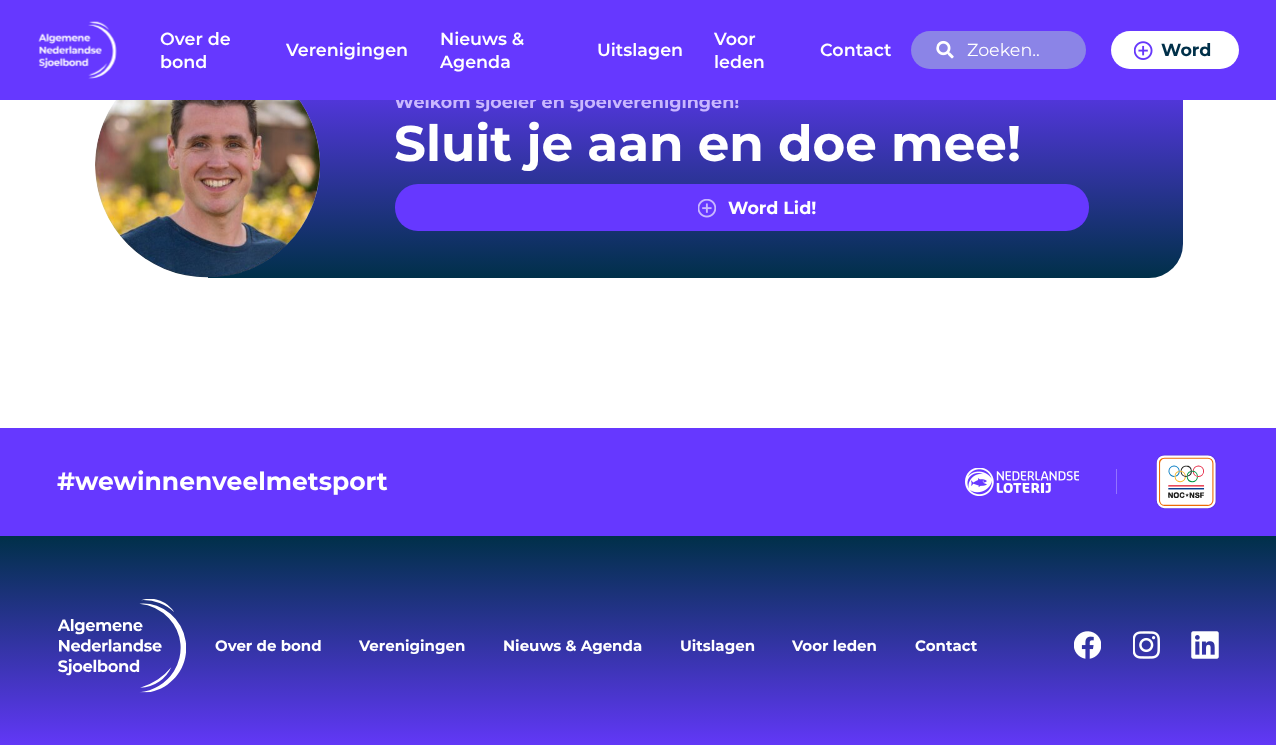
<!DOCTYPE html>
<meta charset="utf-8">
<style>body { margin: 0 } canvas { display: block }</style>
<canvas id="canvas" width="1276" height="745"></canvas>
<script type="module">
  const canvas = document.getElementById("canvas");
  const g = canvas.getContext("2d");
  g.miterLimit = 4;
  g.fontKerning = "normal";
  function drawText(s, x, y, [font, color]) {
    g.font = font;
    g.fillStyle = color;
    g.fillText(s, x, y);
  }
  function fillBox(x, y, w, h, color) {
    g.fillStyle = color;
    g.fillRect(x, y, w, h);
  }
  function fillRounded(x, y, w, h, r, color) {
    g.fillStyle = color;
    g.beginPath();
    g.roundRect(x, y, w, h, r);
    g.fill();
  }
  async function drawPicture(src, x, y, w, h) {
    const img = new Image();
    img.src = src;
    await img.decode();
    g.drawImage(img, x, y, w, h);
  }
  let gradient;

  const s1 = ["bold 17.5px Montserrat", "#C9B7FF"];
  const s2 = ["600 17.5px Montserrat", "#FFFFFF"];
  const s3 = ["17.5px Montserrat", "#FFFFFF"];
  const s4 = ["bold 17.5px Montserrat", "#003049"];
  const s5 = ["bold 50px Montserrat", "#FFFFFF"];
  const s6 = ["bold 17.5px Montserrat", "#FFFFFF"];
  const s7 = ["bold 25px Montserrat", "#FFFFFF"];
  const s8 = ["bold 15px Montserrat", "#FFFFFF"];

  fillBox(0, 0, 1276, 745, "#FFFFFF");
  gradient = g.createLinearGradient(695, 52, 695, 278);
  gradient.addColorStop(0, "#6638FF");
  gradient.addColorStop(1, "#003049");
  g.fillStyle = gradient;
  g.beginPath();
  g.roundRect(208, 53, 975, 225, [0, 34, 34, 0]);
  g.fill();
  drawText("Welkom sjoeler en sjoelverenigingen!", 394, 108, s1);
  fillBox(0, 0, 1276, 100, "#6638FF");
  await drawPicture("pic1.png", 38, 21, 79, 58);
  drawText("Over de", 160, 45, s2);
  drawText("bond", 160, 68, s2);
  drawText("Verenigingen", 286, 56, s2);
  drawText("Nieuws &", 440, 45, s2);
  drawText("Agenda", 440, 68, s2);
  drawText("Uitslagen", 597, 56, s2);
  drawText("Voor", 714, 45, s2);
  drawText("leden", 714, 68, s2);
  drawText("Contact", 820, 56, s2);
  fillRounded(911, 31, 175, 38, 19, "#8B84E7");
  await drawPicture("pic2.png", 936, 40, 18, 19);
  drawText("Zoeken..", 967, 56, s3);
  fillRounded(1111, 31, 128, 38, 19, "#FFFFFF");
  await drawPicture("pic3.png", 1134, 41, 19, 19);
  drawText("Word", 1161, 56, s4);
  await drawPicture("pic4.png", 95, 100, 225, 178);
  drawText("Sluit je aan en doe mee!", 394, 161, s5);
  fillRounded(395, 184, 694, 47, 23, "#6638FF");
  await drawPicture("pic5.png", 698, 199, 18, 19);
  drawText("Word Lid!", 728, 214, s6);
  fillBox(0, 428, 1276, 108, "#6638FF");
  drawText("#wewinnenveelmetsport", 57, 490, s7);
  await drawPicture("pic6.png", 965, 468, 114, 28);
  g.save();
  g.beginPath();
  g.rect(1116, 469, 1, 25);
  g.clip();
  g.beginPath();
  g.moveTo(1117, 469);
  g.lineTo(1117, 494);
  g.strokeStyle = "#FFFFFF";
  g.lineWidth = 0.6;
  g.stroke();
  g.restore();
  await drawPicture("pic7.png", 1156, 454, 61, 55);
  gradient = g.createLinearGradient(638, 536, 638, 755);
  gradient.addColorStop(0, "#003049");
  gradient.addColorStop(1, "#6638FF");
  g.fillStyle = gradient;
  g.fillRect(0, 536, 1276, 209);
  await drawPicture("pic8.png", 58, 599, 128, 94);
  drawText("Over de bond", 215, 651, s8);
  drawText("Verenigingen", 359, 651, s8);
  drawText("Nieuws & Agenda", 503, 651, s8);
  drawText("Uitslagen", 680, 651, s8);
  drawText("Voor leden", 792, 651, s8);
  drawText("Contact", 915, 651, s8);
  await drawPicture("pic9.png", 1074, 631, 27, 28);
  await drawPicture("pic10.png", 1133, 631, 27, 28);
  await drawPicture("pic11.png", 1191, 631, 28, 28);
</script>
